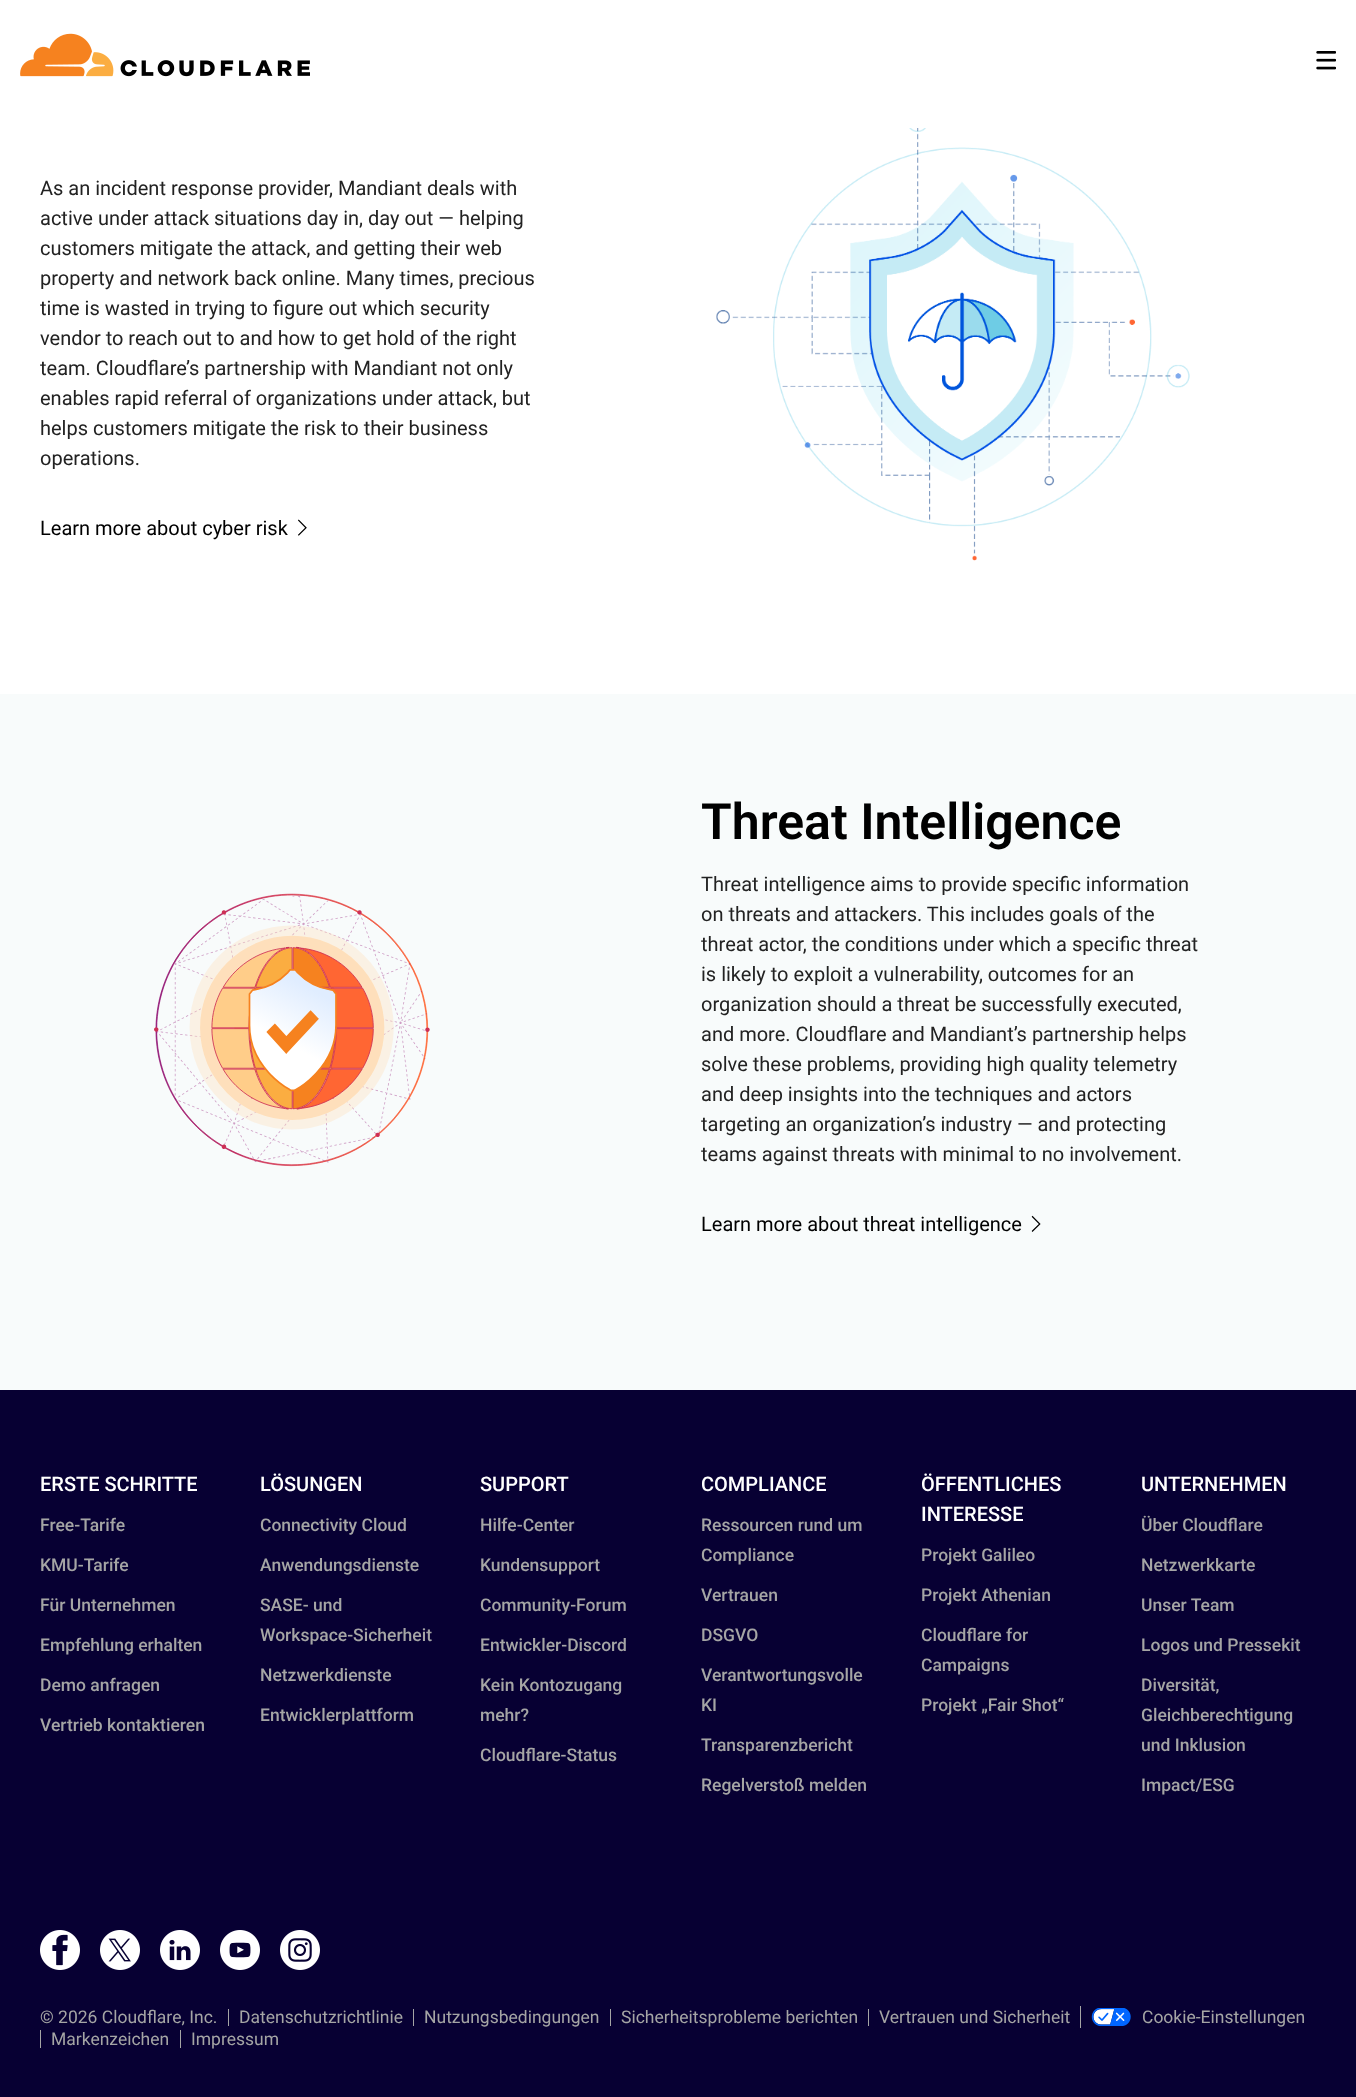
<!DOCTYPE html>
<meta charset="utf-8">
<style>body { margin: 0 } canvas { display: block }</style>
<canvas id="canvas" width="1356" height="2097"></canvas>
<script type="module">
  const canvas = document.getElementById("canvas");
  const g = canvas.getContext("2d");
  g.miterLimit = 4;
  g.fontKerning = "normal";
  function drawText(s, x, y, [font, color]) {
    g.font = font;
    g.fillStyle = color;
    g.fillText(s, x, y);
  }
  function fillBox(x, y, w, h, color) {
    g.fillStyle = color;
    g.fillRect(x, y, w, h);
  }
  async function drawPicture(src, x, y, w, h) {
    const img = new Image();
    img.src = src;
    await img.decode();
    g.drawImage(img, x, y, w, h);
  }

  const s1 = ["20px Roboto", "#222222"];
  const s2 = ["20px Roboto", "#000000"];
  const s3 = ["600 50px Roboto", "#000000"];
  const s4 = ["500 20px Roboto", "#FFFFFF"];
  const s5 = ["500 17.5px Roboto", "#A5A5A5"];
  const s6 = ["17.5px Roboto", "#A5A5A5"];

  fillBox(0, 0, 1356, 2097, "#FFFFFF");
  await drawPicture("pic1.png", 20, 33, 290, 44);
  await drawPicture("pic2.png", 1316, 51, 20, 19);
  drawText("As an incident response provider, Mandiant deals with", 40, 195, s1);
  drawText("active under attack situations day in, day out — helping", 40, 225, s1);
  drawText("customers mitigate the attack, and getting their web", 40, 255, s1);
  drawText("property and network back online. Many times, precious", 40, 285, s1);
  drawText("time is wasted in trying to figure out which security", 40, 315, s1);
  drawText("vendor to reach out to and how to get hold of the right", 40, 345, s1);
  drawText("team. Cloudflare’s partnership with Mandiant not only", 40, 375, s1);
  drawText("enables rapid referral of organizations under attack, but", 40, 405, s1);
  drawText("helps customers mitigate the risk to their business", 40, 435, s1);
  drawText("operations.", 40, 465, s1);
  drawText("Learn more about cyber risk", 40, 535, s2);
  await drawPicture("pic3.png", 298, 519, 9, 17);
  await drawPicture("pic4.png", 716, 128, 474, 433);
  fillBox(0, 694, 1356, 696, "#F8FBFB");
  await drawPicture("pic5.png", 154, 893, 276, 274);
  drawText("Threat Intelligence", 701, 839, s3);
  drawText("Threat intelligence aims to provide specific information", 701, 891, s1);
  drawText("on threats and attackers. This includes goals of the", 701, 921, s1);
  drawText("threat actor, the conditions under which a specific threat", 701, 951, s1);
  drawText("is likely to exploit a vulnerability, outcomes for an", 701, 981, s1);
  drawText("organization should a threat be successfully executed,", 701, 1011, s1);
  drawText("and more. Cloudflare and Mandiant’s partnership helps", 701, 1041, s1);
  drawText("solve these problems, providing high quality telemetry", 701, 1071, s1);
  drawText("and deep insights into the techniques and actors", 701, 1101, s1);
  drawText("targeting an organization’s industry — and protecting", 701, 1131, s1);
  drawText("teams against threats with minimal to no involvement.", 701, 1161, s1);
  drawText("Learn more about threat intelligence", 701, 1231, s2);
  await drawPicture("pic6.png", 1031, 1215, 10, 17);
  fillBox(0, 1390, 1356, 707, "#070033");
  drawText("ERSTE SCHRITTE", 40, 1491, s4);
  drawText("Free-Tarife", 40, 1531, s5);
  drawText("KMU-Tarife", 40, 1571, s5);
  drawText("Für Unternehmen", 40, 1611, s5);
  drawText("Empfehlung erhalten", 40, 1651, s5);
  drawText("Demo anfragen", 40, 1691, s5);
  drawText("Vertrieb kontaktieren", 40, 1731, s5);
  drawText("LÖSUNGEN", 260, 1491, s4);
  drawText("Connectivity Cloud", 260, 1531, s5);
  drawText("Anwendungsdienste", 260, 1571, s5);
  drawText("SASE- und", 260, 1611, s5);
  drawText("Workspace-Sicherheit", 260, 1641, s5);
  drawText("Netzwerkdienste", 260, 1681, s5);
  drawText("Entwicklerplattform", 260, 1721, s5);
  drawText("SUPPORT", 480, 1491, s4);
  drawText("Hilfe-Center", 480, 1531, s5);
  drawText("Kundensupport", 480, 1571, s5);
  drawText("Community-Forum", 480, 1611, s5);
  drawText("Entwickler-Discord", 480, 1651, s5);
  drawText("Kein Kontozugang", 480, 1691, s5);
  drawText("mehr?", 480, 1721, s5);
  drawText("Cloudflare-Status", 480, 1761, s5);
  drawText("COMPLIANCE", 701, 1491, s4);
  drawText("Ressourcen rund um", 701, 1531, s5);
  drawText("Compliance", 701, 1561, s5);
  drawText("Vertrauen", 701, 1601, s5);
  drawText("DSGVO", 701, 1641, s5);
  drawText("Verantwortungsvolle", 701, 1681, s5);
  drawText("KI", 701, 1711, s5);
  drawText("Transparenzbericht", 701, 1751, s5);
  drawText("Regelverstoß melden", 701, 1791, s5);
  drawText("ÖFFENTLICHES", 921, 1491, s4);
  drawText("INTERESSE", 921, 1521, s4);
  drawText("Projekt Galileo", 921, 1561, s5);
  drawText("Projekt Athenian", 921, 1601, s5);
  drawText("Cloudflare for", 921, 1641, s5);
  drawText("Campaigns", 921, 1671, s5);
  drawText("Projekt „Fair Shot“", 921, 1711, s5);
  drawText("UNTERNEHMEN", 1141, 1491, s4);
  drawText("Über Cloudflare", 1141, 1531, s5);
  drawText("Netzwerkkarte", 1141, 1571, s5);
  drawText("Unser Team", 1141, 1611, s5);
  drawText("Logos und Pressekit", 1141, 1651, s5);
  drawText("Diversität,", 1141, 1691, s5);
  drawText("Gleichberechtigung", 1141, 1721, s5);
  drawText("und Inklusion", 1141, 1751, s5);
  drawText("Impact/ESG", 1141, 1791, s5);
  await drawPicture("pic7.png", 40, 1930, 40, 40);
  await drawPicture("pic8.png", 100, 1930, 40, 40);
  await drawPicture("pic9.png", 160, 1930, 40, 40);
  await drawPicture("pic10.png", 220, 1930, 40, 40);
  await drawPicture("pic11.png", 280, 1930, 40, 40);
  drawText("© 2026 Cloudflare, Inc.", 40, 2023, s6);
  fillBox(228, 2009, 1, 17, "#A5A5A5");
  drawText("Datenschutzrichtlinie", 239, 2023, s6);
  fillBox(413, 2009, 1, 17, "#A5A5A5");
  drawText("Nutzungsbedingungen", 424, 2023, s6);
  fillBox(610, 2009, 1, 17, "#A5A5A5");
  drawText("Sicherheitsprobleme berichten", 621, 2023, s6);
  fillBox(868, 2009, 1, 17, "#A5A5A5");
  drawText("Vertrauen und Sicherheit", 879, 2023, s6);
  fillBox(1080, 2006, 1, 22, "#A5A5A5");
  await drawPicture("pic12.png", 1091, 2008, 40, 18);
  drawText("Cookie-Einstellungen", 1142, 2023, s6);
  fillBox(40, 2030, 1, 18, "#A5A5A5");
  drawText("Markenzeichen", 51, 2045, s6);
  fillBox(180, 2030, 1, 18, "#A5A5A5");
  drawText("Impressum", 191, 2045, s6);
</script>
